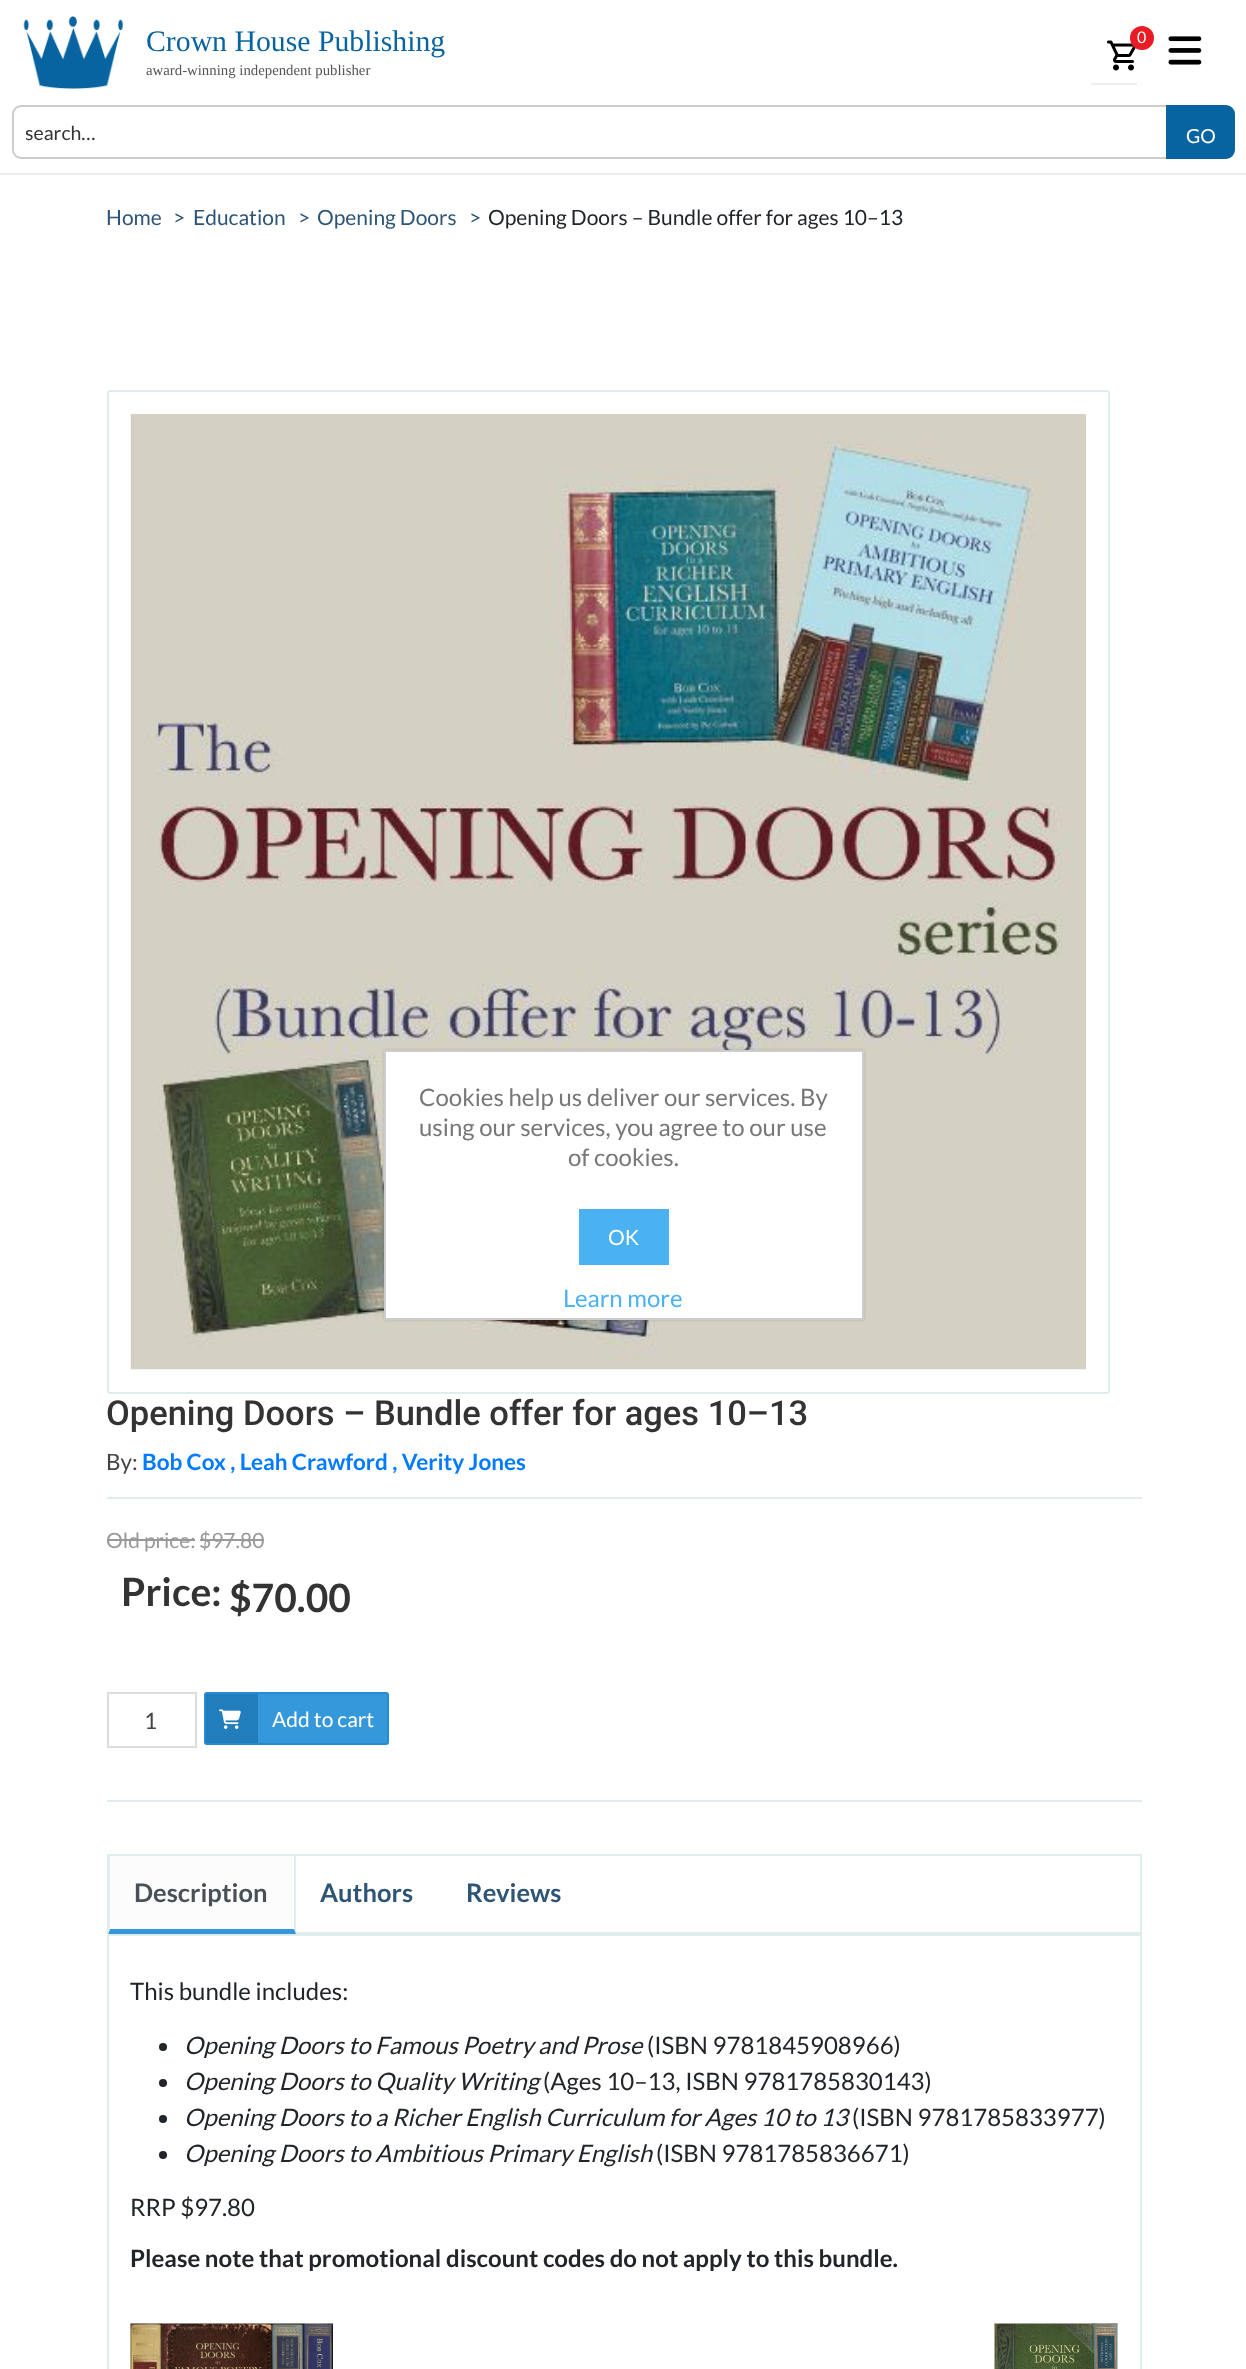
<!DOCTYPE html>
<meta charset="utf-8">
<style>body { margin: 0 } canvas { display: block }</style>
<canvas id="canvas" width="1246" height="2369"></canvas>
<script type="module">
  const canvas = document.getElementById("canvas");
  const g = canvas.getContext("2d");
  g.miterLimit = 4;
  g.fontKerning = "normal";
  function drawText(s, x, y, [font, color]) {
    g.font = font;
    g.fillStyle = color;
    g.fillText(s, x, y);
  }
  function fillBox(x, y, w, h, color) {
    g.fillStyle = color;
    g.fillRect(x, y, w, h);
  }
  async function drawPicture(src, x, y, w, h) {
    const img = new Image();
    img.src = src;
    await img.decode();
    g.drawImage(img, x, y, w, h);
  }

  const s1 = ["29.75px Liberation Serif", "#0864A1"];
  const s2 = ["14.8px Liberation Serif", "#555555"];
  const s3 = ["16px Lato", "#FFFFFF"];
  const s4 = ["19.5px Lato", "#333333"];
  const s5 = ["19.5px Lato", "#FFFFFF"];
  const s6 = ["21px Lato", "#2E5476"];
  const s7 = ["21px Lato", "#212529"];
  const s8 = ["500 34.5px Roboto", "#333333"];
  const s9 = ["22.5px Lato", "#444444"];
  const s10 = ["bold 22.5px Lato", "#007BFF"];
  const s11 = ["21px Lato", "#999999"];
  const s12 = ["bold 39px Lato", "#333333"];
  const s13 = ["21px Lato", "#FFFFFF"];
  const s14 = ["bold 25.5px Lato", "#495057"];
  const s15 = ["bold 25.5px Lato", "#2E5476"];
  const s16 = ["24px Lato", "#212529"];
  const s17 = ["italic 24px Lato", "#212529"];
  const s18 = ["bold 24px Lato", "#212529"];
  const s19 = ["24px Lato", "#777777"];
  const s20 = ["24px Lato", "#4AB2F1"];

  fillBox(0, 0, 1246, 2369, "#FFFFFF");
  fillBox(0, 173, 1246, 2, "#EEEEEE");
  await drawPicture("pic1.png", 23, 16, 101, 74);
  drawText("Crown House Publishing", 146, 51, s1);
  drawText("award-winning independent publisher", 146, 75, s2);
  fillBox(1091, 83, 46, 2, "#EEEEEE");
  await drawPicture("pic2.png", 1107, 40, 29, 31);
  g.fillStyle = "#E91B23";
  g.beginPath();
  g.arc(1142, 38, 12, 0, Math.PI * 2);
  g.fill();
  drawText("0", 1137, 43, s3);
  g.beginPath();
  g.roundRect(13, 106, 1156, 52, [8, 0, 0, 8]);
  g.strokeStyle = "#CCCCCC";
  g.lineWidth = 2;
  g.stroke();
  g.save();
  g.beginPath();
  g.rect(26, 120, 1131, 24);
  g.clip();
  drawText("search…", 25, 140, s4);
  g.restore();
  g.fillStyle = "#0864A1";
  g.beginPath();
  g.roundRect(1167, 106, 67, 52, [0, 8, 8, 0]);
  g.fill();
  g.strokeStyle = "#0864A1";
  g.stroke();
  drawText("GO", 1186, 143, s5);
  await drawPicture("pic3.png", 1168, 36, 34, 29);
  drawText("Home", 106, 225, s6);
  drawText(">", 173, 225, s6);
  drawText("Education", 193, 225, s6);
  drawText(">", 298, 225, s6);
  drawText("Opening Doors", 317, 225, s6);
  drawText(">", 469, 225, s6);
  drawText("Opening Doors – Bundle offer for ages 10–13", 488, 225, s7);
  g.beginPath();
  g.roundRect(108, 391, 1001, 1002, 2);
  g.strokeStyle = "#E0EDED";
  g.stroke();
  await drawPicture("pic4.png", 130, 414, 956, 956);
  drawText("Opening Doors – Bundle offer for ages 10–13", 106, 1425, s8);
  drawText("By:", 106, 1470, s9);
  drawText("Bob Cox , Leah Crawford , Verity Jones", 142, 1470, s10);
  fillBox(107, 1497, 1035, 2, "#E0EDED");
  g.save();
  g.beginPath();
  g.rect(107, 1521, 1035, 120);
  g.clip();
  drawText("Old price:", 106, 1548, s11);
  g.restore();
  fillBox(107, 1539, 88, 2, "#999999");
  drawText("$97.80", 199, 1548, s11);
  fillBox(200, 1539, 64, 2, "#999999");
  drawText("Price:", 121, 1606, s12);
  drawText("$70.00", 229, 1612, s12);
  g.strokeStyle = "#DDDDDD";
  g.strokeRect(108, 1693, 88, 54);
  drawText("1", 144, 1729, s9);
  g.fillStyle = "#3498DB";
  g.beginPath();
  g.roundRect(205, 1693, 183, 51, 2);
  g.fill();
  g.strokeStyle = "#258CD1";
  g.stroke();
  fillBox(206, 1694, 52, 49, "#217DBB");
  await drawPicture("pic5.png", 219, 1709, 22, 20);
  drawText("Add to cart", 272, 1727, s13);
  fillBox(107, 1800, 1035, 2, "#E0EDED");
  g.strokeStyle = "#E0EDED";
  g.strokeRect(108, 1855, 1033, 78);
  fillBox(108, 1856, 188, 78, "#FCFCFC");
  g.fillStyle = "#E0EDED";
  g.beginPath();
  g.moveTo(296, 1856);
  g.lineTo(296, 1934);
  g.lineTo(294, 1929);
  g.lineTo(294, 1856);
  g.closePath();
  g.fill();
  g.fillStyle = "#3498DB";
  g.beginPath();
  g.moveTo(296, 1934);
  g.lineTo(108, 1934);
  g.lineTo(110, 1929);
  g.lineTo(294, 1929);
  g.closePath();
  g.fill();
  g.fillStyle = "#E0EDED";
  g.beginPath();
  g.moveTo(108, 1934);
  g.lineTo(108, 1856);
  g.lineTo(110, 1856);
  g.lineTo(110, 1929);
  g.closePath();
  g.fill();
  drawText("Description", 134, 1902, s14);
  drawText("Authors", 320, 1902, s15);
  drawText("Reviews", 466, 1902, s15);
  g.strokeRect(108, 1935, 1033, 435);
  drawText("This bundle includes:", 130, 2000, s16);
  g.beginPath();
  g.arc(163, 2047, 4, 0, Math.PI * 2);
  g.fill();
  drawText("Opening Doors to Famous Poetry and Prose", 184, 2054, s17);
  drawText("(ISBN 9781845908966)", 647, 2054, s16);
  g.beginPath();
  g.arc(163, 2083, 4, 0, Math.PI * 2);
  g.fill();
  drawText("Opening Doors to Quality Writing", 184, 2090, s17);
  drawText("(Ages 10–13, ISBN 9781785830143)", 543, 2090, s16);
  g.beginPath();
  g.arc(163, 2119, 4, 0, Math.PI * 2);
  g.fill();
  drawText("Opening Doors to a Richer English Curriculum for Ages 10 to 13", 184, 2126, s17);
  drawText("(ISBN 9781785833977)", 852, 2126, s16);
  g.beginPath();
  g.arc(163, 2155, 4, 0, Math.PI * 2);
  g.fill();
  drawText("Opening Doors to Ambitious Primary English", 184, 2162, s17);
  drawText("(ISBN 9781785836671)", 656, 2162, s16);
  drawText("RRP $97.80", 130, 2216, s16);
  drawText("Please note that promotional discount codes do not apply to this bundle.", 130, 2267, s18);
  await drawPicture("pic6.png", 130, 2323, 203, 46);
  await drawPicture("pic7.png", 994, 2323, 124, 46);
  g.fillStyle = "rgba(0, 0, 0, 0.15)";
  g.filter = "blur(1.5px)";
  g.beginPath();
  g.rect(384, 1050, 480, 270);
  g.fill();
  g.filter = "none";
  g.fillStyle = "#FFFFFF";
  g.beginPath();
  g.rect(385, 1051, 478, 268);
  g.fill();
  g.strokeStyle = "#CCCCCC";
  g.stroke();
  drawText("Cookies help us deliver our services. By", 419, 1106, s19);
  drawText("using our services, you agree to our use", 419, 1136, s19);
  drawText("of cookies.", 568, 1166, s19);
  fillBox(579, 1209, 90, 56, "#4AB2F1");
  drawText("OK", 608, 1245, s13);
  drawText("Learn more", 563, 1307, s20);
</script>
